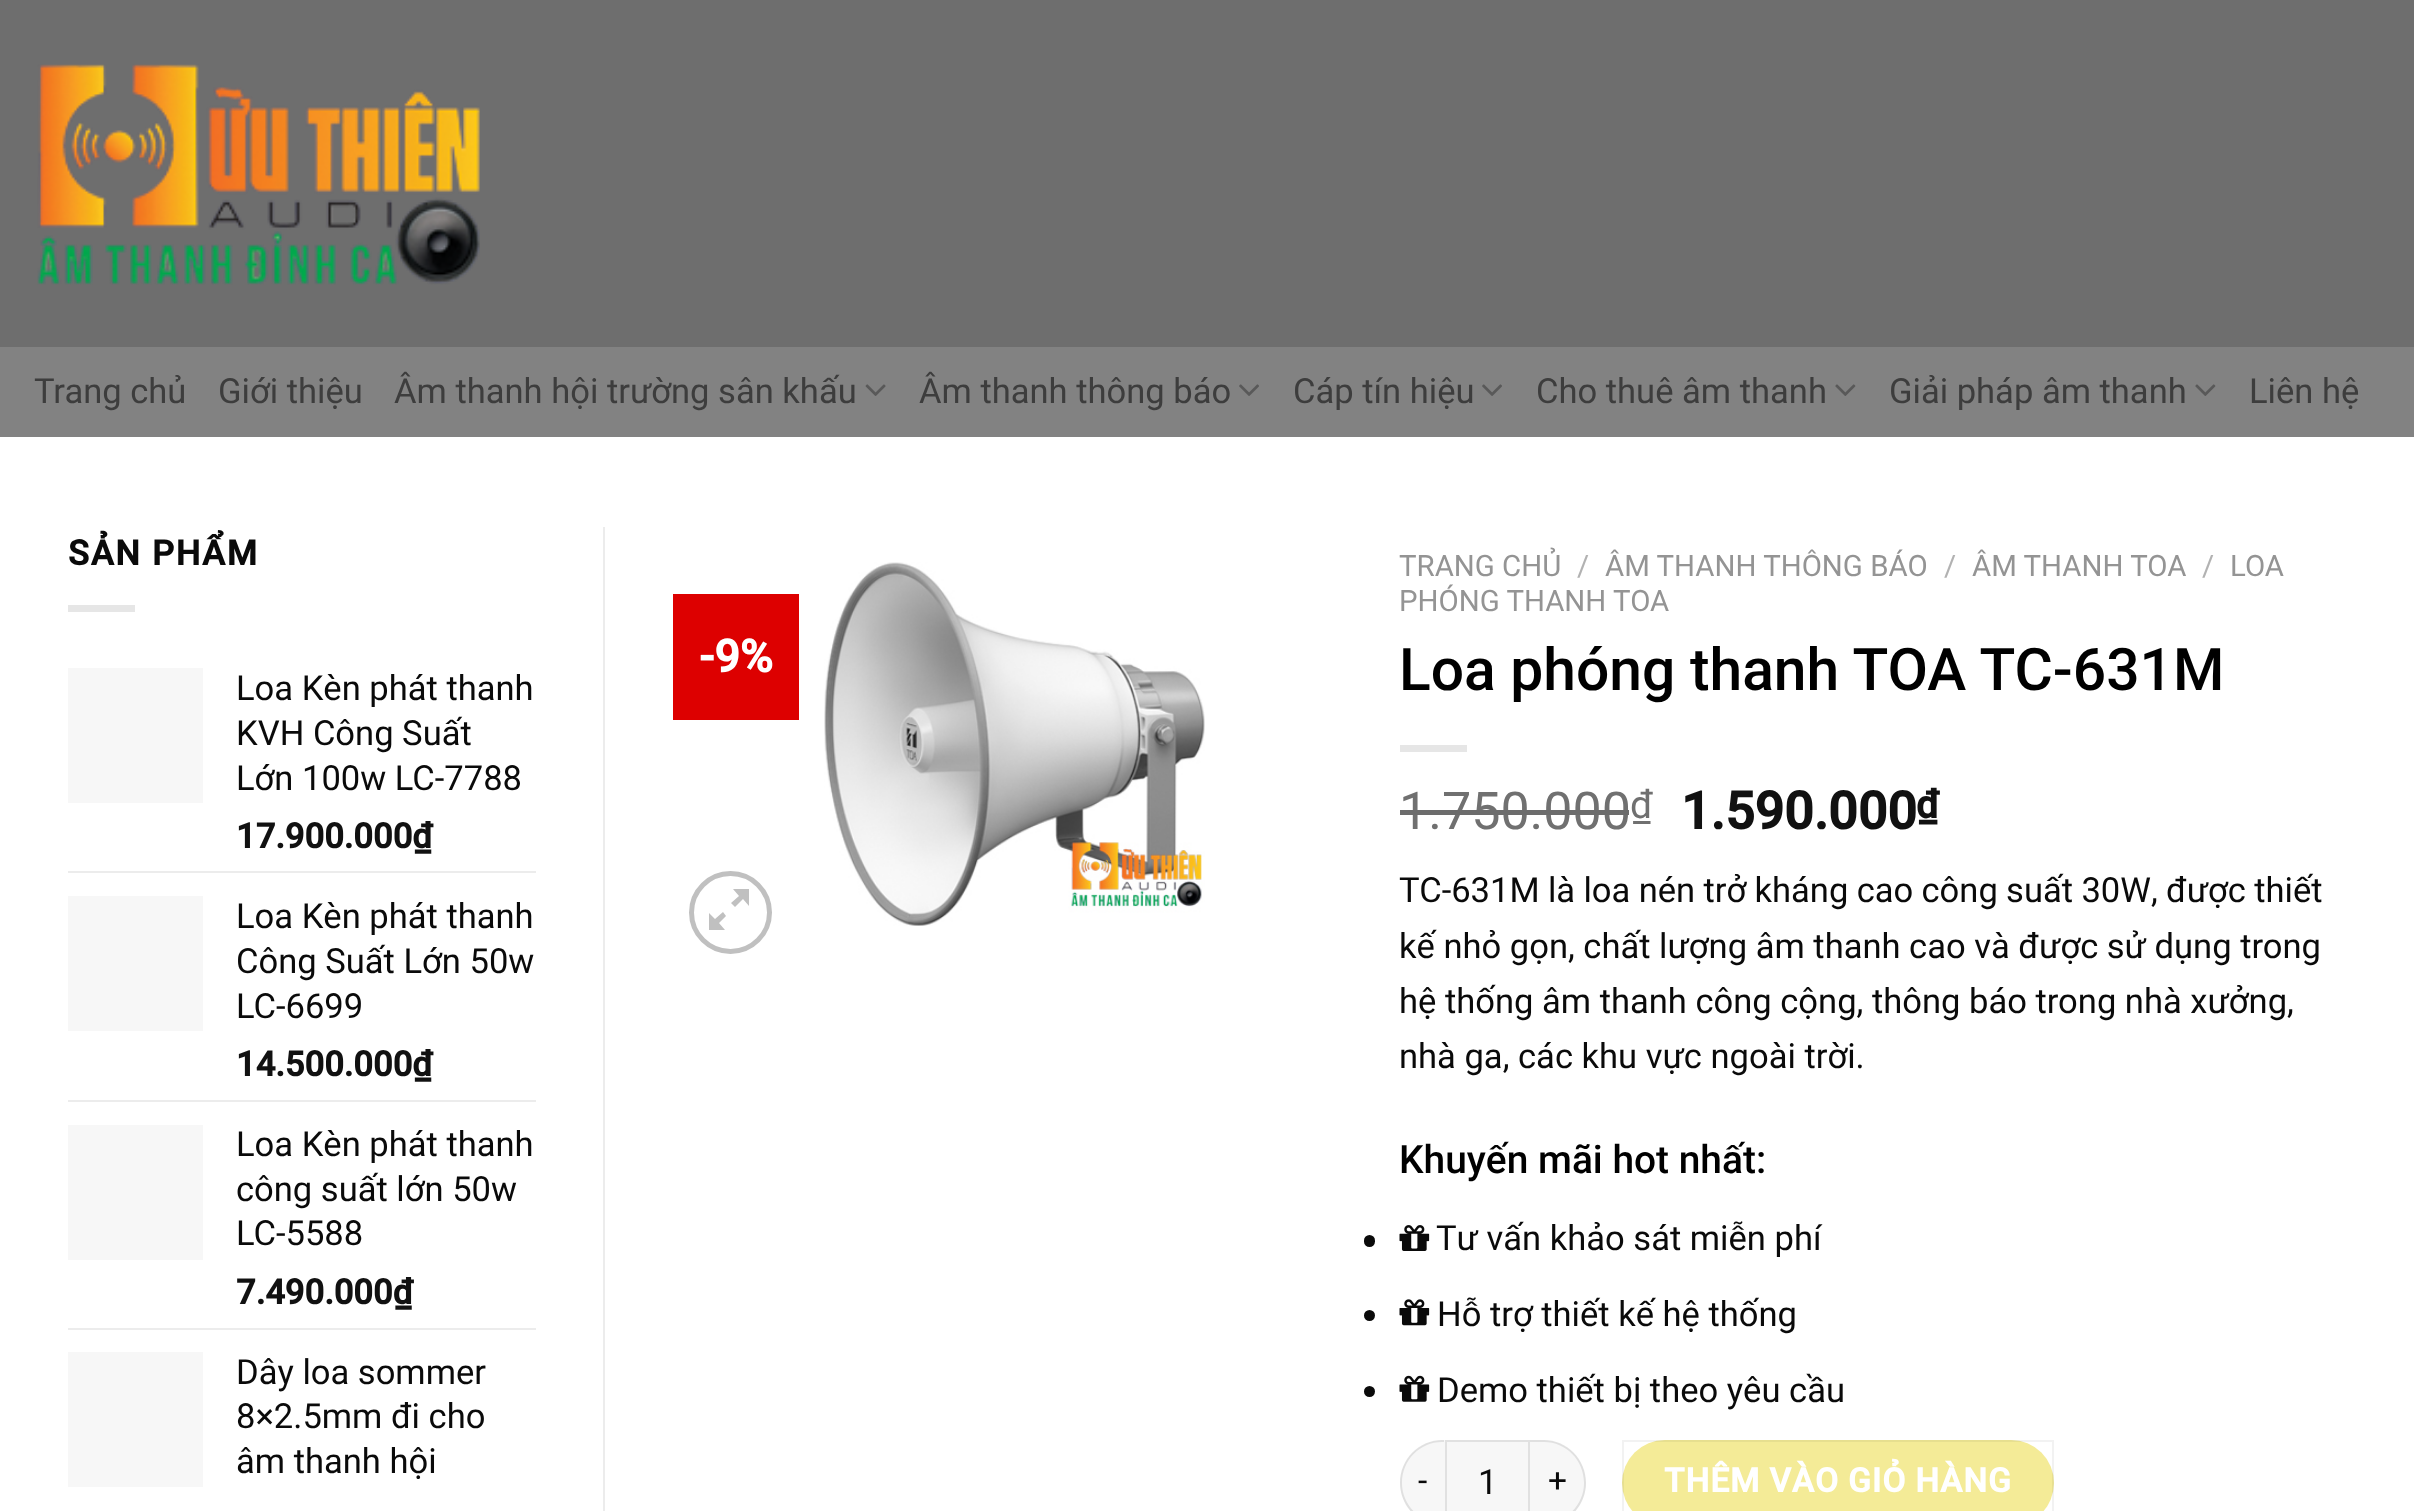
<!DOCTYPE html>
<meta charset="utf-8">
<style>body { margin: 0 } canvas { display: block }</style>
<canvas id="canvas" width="2414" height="1511"></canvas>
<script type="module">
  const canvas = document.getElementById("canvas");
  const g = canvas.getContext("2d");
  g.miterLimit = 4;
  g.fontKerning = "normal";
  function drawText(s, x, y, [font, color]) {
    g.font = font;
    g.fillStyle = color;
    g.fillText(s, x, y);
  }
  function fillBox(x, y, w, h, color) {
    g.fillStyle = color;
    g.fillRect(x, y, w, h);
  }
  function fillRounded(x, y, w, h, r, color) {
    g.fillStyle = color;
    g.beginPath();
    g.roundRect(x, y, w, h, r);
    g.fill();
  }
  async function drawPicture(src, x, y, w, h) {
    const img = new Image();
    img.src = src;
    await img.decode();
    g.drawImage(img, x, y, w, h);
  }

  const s1 = ["34.55px Roboto", "#3D3D3D"];
  const s2 = ["bold 34.55px Roboto", "#0A0A0A"];
  const s3 = ["34.55px Roboto", "#0A0A0A"];
  const s4 = ["bold 34.55px Roboto", "#111111"];
  const s5 = ["bold 45px Roboto", "#FFFFFF"];
  const s6 = ["29.4px Roboto", "#949494"];
  const s7 = ["29.4px Roboto", "#B2B2B2"];
  const s8 = ["500 58.75px Roboto", "#000000"];
  const s9 = ["52px Roboto", "#707070"];
  const s10 = ["38.9px Roboto", "#707070"];
  const s11 = ["bold 52px Roboto", "#111111"];
  const s12 = ["bold 38.9px Roboto", "#111111"];
  const s13 = ["500 38.9px Roboto", "#000000"];
  const s14 = ["33.5px Roboto", "#0A0A0A"];
  const s15 = ["bold 33.5px Roboto", "#FFFFFF"];

  fillBox(0, 0, 2414, 1511, "#FFFFFF");
  fillBox(0, 0, 2414, 347, "#6E6E6E");
  await drawPicture("pic1.png", 37, 64, 443, 221);
  fillBox(0, 347, 2414, 90, "#828282");
  drawText("Trang chủ", 34, 403, s1);
  drawText("Giới thiệu", 218, 403, s1);
  drawText("Âm thanh hội trường sân khấu", 394, 403, s1);
  await drawPicture("pic2.png", 865, 384, 21, 12);
  drawText("Âm thanh thông báo", 919, 403, s1);
  await drawPicture("pic3.png", 1239, 384, 20, 12);
  drawText("Cáp tín hiệu", 1293, 403, s1);
  await drawPicture("pic3.png", 1482, 384, 20, 12);
  drawText("Cho thuê âm thanh", 1536, 403, s1);
  await drawPicture("pic4.png", 1835, 384, 21, 12);
  drawText("Giải pháp âm thanh", 1889, 403, s1);
  await drawPicture("pic4.png", 2195, 384, 21, 12);
  drawText("Liên hệ", 2249, 403, s1);
  g.letterSpacing = "1.75px";
  drawText("SẢN PHẨM", 68, 565, s2);
  fillBox(68, 605, 67, 7, "#E6E6E6");
  fillBox(68, 668, 135, 135, "#F7F7F7");
  g.letterSpacing = "0px";
  drawText("Loa Kèn phát thanh", 236, 700, s3);
  drawText("KVH Công Suất", 236, 745, s3);
  drawText("Lớn 100w LC-7788", 236, 790, s3);
  drawText("17.900.000₫", 236, 848, s4);
  fillBox(68, 871, 468, 2, "#ECECEC");
  fillBox(68, 896, 135, 135, "#F7F7F7");
  drawText("Loa Kèn phát thanh", 236, 928, s3);
  drawText("Công Suất Lớn 50w", 236, 973, s3);
  drawText("LC-6699", 236, 1018, s3);
  drawText("14.500.000₫", 236, 1076, s4);
  fillBox(68, 1100, 468, 2, "#ECECEC");
  fillBox(68, 1125, 135, 135, "#F7F7F7");
  drawText("Loa Kèn phát thanh", 236, 1156, s3);
  drawText("công suất lớn 50w", 236, 1201, s3);
  drawText("LC-5588", 236, 1245, s3);
  drawText("7.490.000₫", 236, 1304, s4);
  fillBox(68, 1328, 468, 2, "#ECECEC");
  fillBox(68, 1352, 135, 135, "#F7F7F7");
  drawText("Dây loa sommer", 236, 1384, s3);
  drawText("8×2.5mm đi cho", 236, 1428, s3);
  drawText("âm thanh hội", 236, 1473, s3);
  fillBox(603, 527, 2, 984, "#ECECEC");
  fillBox(673, 594, 126, 126, "#DD0000");
  drawText("-9%", 699, 672, s5);
  await drawPicture("pic5.png", 824, 562, 381, 364);
  g.beginPath();
  g.arc(730.5, 912.5, 39, 0, Math.PI * 2);
  g.strokeStyle = "#C0C0C0";
  g.lineWidth = 5;
  g.stroke();
  g.fillStyle = "#C0C0C0";
  g.beginPath();
  g.moveTo(749, 889);
  g.lineTo(749, 906);
  g.lineTo(743, 899);
  g.lineTo(735, 907);
  g.lineTo(731, 903);
  g.lineTo(739, 896);
  g.lineTo(733, 889);
  g.closePath();
  g.moveTo(726, 916);
  g.lineTo(719, 923);
  g.lineTo(725, 930);
  g.lineTo(709, 930);
  g.lineTo(709, 913);
  g.lineTo(715, 919);
  g.lineTo(723, 912);
  g.closePath();
  g.fill();
  drawText("TRANG CHỦ", 1399, 576, s6);
  drawText("/", 1577, 576, s7);
  drawText("ÂM THANH THÔNG BÁO", 1605, 576, s6);
  drawText("/", 1944, 576, s7);
  drawText("ÂM THANH TOA", 1972, 576, s6);
  drawText("/", 2202, 576, s7);
  drawText("LOA", 2230, 576, s6);
  drawText("PHÓNG THANH TOA", 1399, 611, s6);
  drawText("Loa phóng thanh TOA TC-631M", 1399, 690, s8);
  fillBox(1400, 745, 67, 7, "#E6E6E6");
  drawText("1.750.000", 1399, 829, s9);
  fillBox(1400, 810, 229, 5, "#6C6C6C");
  drawText("₫", 1630, 818, s10);
  drawText("1.590.000", 1681, 829, s11);
  drawText("₫", 1916, 818, s12);
  g.wordSpacing = "-0.25px";
  drawText("TC-631M là loa nén trở kháng cao công suất 30W, được thiết", 1399, 902, s3);
  g.wordSpacing = "0px";
  drawText("kế nhỏ gọn, chất lượng âm thanh cao và được sử dụng trong", 1399, 958, s3);
  drawText("hệ thống âm thanh công cộng, thông báo trong nhà xưởng,", 1399, 1013, s3);
  drawText("nhà ga, các khu vực ngoài trời.", 1399, 1068, s3);
  drawText("Khuyến mãi hot nhất:", 1399, 1173, s13);
  fillRounded(1364, 1235, 11, 12, 5.5, "#0A0A0A");
  await drawPicture("pic6.png", 1399, 1225, 31, 26);
  drawText("Tư vấn khảo sát miễn phí", 1436, 1250, s3);
  g.beginPath();
  g.arc(1369.5, 1315.5, 5.5, 0, Math.PI * 2);
  g.fill();
  await drawPicture("pic7.png", 1399, 1299, 31, 27);
  drawText("Hỗ trợ thiết kế hệ thống", 1437, 1326, s3);
  g.beginPath();
  g.arc(1369.5, 1391.5, 5.5, 0, Math.PI * 2);
  g.fill();
  await drawPicture("pic8.png", 1399, 1375, 31, 27);
  drawText("Demo thiết bị theo yêu cầu", 1437, 1402, s3);
  g.fillStyle = "#F7F7F7";
  g.beginPath();
  g.moveTo(1443, 1440);
  g.lineTo(1445, 1440);
  g.lineTo(1445, 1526);
  g.lineTo(1443, 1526);
  g.bezierCurveTo(1419.5, 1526, 1400, 1506.5, 1400, 1483);
  g.bezierCurveTo(1400, 1459.5, 1419.5, 1440, 1443, 1440);
  g.closePath();
  g.fill();
  g.fillStyle = "rgba(0, 0, 0, 0.09)";
  g.beginPath();
  g.moveTo(1442, 1440);
  g.lineTo(1444, 1440);
  g.lineTo(1444, 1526);
  g.lineTo(1442, 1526);
  g.bezierCurveTo(1419, 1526, 1400, 1506, 1400, 1483);
  g.bezierCurveTo(1400, 1459, 1419, 1440, 1442, 1440);
  g.closePath();
  g.moveTo(1442, 1442);
  g.lineTo(1444, 1442);
  g.lineTo(1444, 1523);
  g.lineTo(1442, 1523);
  g.bezierCurveTo(1420, 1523, 1402, 1505, 1402, 1483);
  g.bezierCurveTo(1402, 1460, 1420, 1442, 1442, 1442);
  g.closePath();
  g.fill("evenodd");
  g.letterSpacing = "1px";
  drawText("-", 1418, 1492, s14);
  g.fillStyle = "#F7F7F7";
  g.beginPath();
  g.rect(1446, 1441, 83, 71);
  g.fill();
  g.strokeStyle = "#E1E1E1";
  g.lineWidth = 2;
  g.stroke();
  g.letterSpacing = "0px";
  drawText("1", 1478, 1494, s3);
  g.fillStyle = "#F7F7F7";
  g.beginPath();
  g.moveTo(1530, 1440);
  g.lineTo(1543, 1440);
  g.bezierCurveTo(1566.5, 1440, 1586, 1459.5, 1586, 1483);
  g.bezierCurveTo(1586, 1506.5, 1566.5, 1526, 1543, 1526);
  g.lineTo(1530, 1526);
  g.closePath();
  g.fill();
  g.fillStyle = "rgba(0, 0, 0, 0.09)";
  g.beginPath();
  g.moveTo(1530, 1440);
  g.lineTo(1544, 1440);
  g.bezierCurveTo(1567, 1440, 1586, 1459, 1586, 1483);
  g.bezierCurveTo(1586, 1506, 1567, 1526, 1544, 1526);
  g.lineTo(1530, 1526);
  g.closePath();
  g.moveTo(1530, 1442);
  g.lineTo(1544, 1442);
  g.bezierCurveTo(1566, 1442, 1584, 1460, 1584, 1483);
  g.bezierCurveTo(1584, 1505, 1566, 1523, 1544, 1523);
  g.lineTo(1530, 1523);
  g.closePath();
  g.fill("evenodd");
  g.letterSpacing = "1px";
  drawText("+", 1548, 1492, s14);
  fillRounded(1622, 1440, 432, 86, 43, "#F4EB97");
  g.strokeStyle = "rgba(0, 0, 0, 0.05)";
  g.strokeRect(1623, 1441, 430, 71);
  g.wordSpacing = "-0.5px";
  drawText("THÊM VÀO GIỎ HÀNG", 1664, 1492, s15);
</script>
